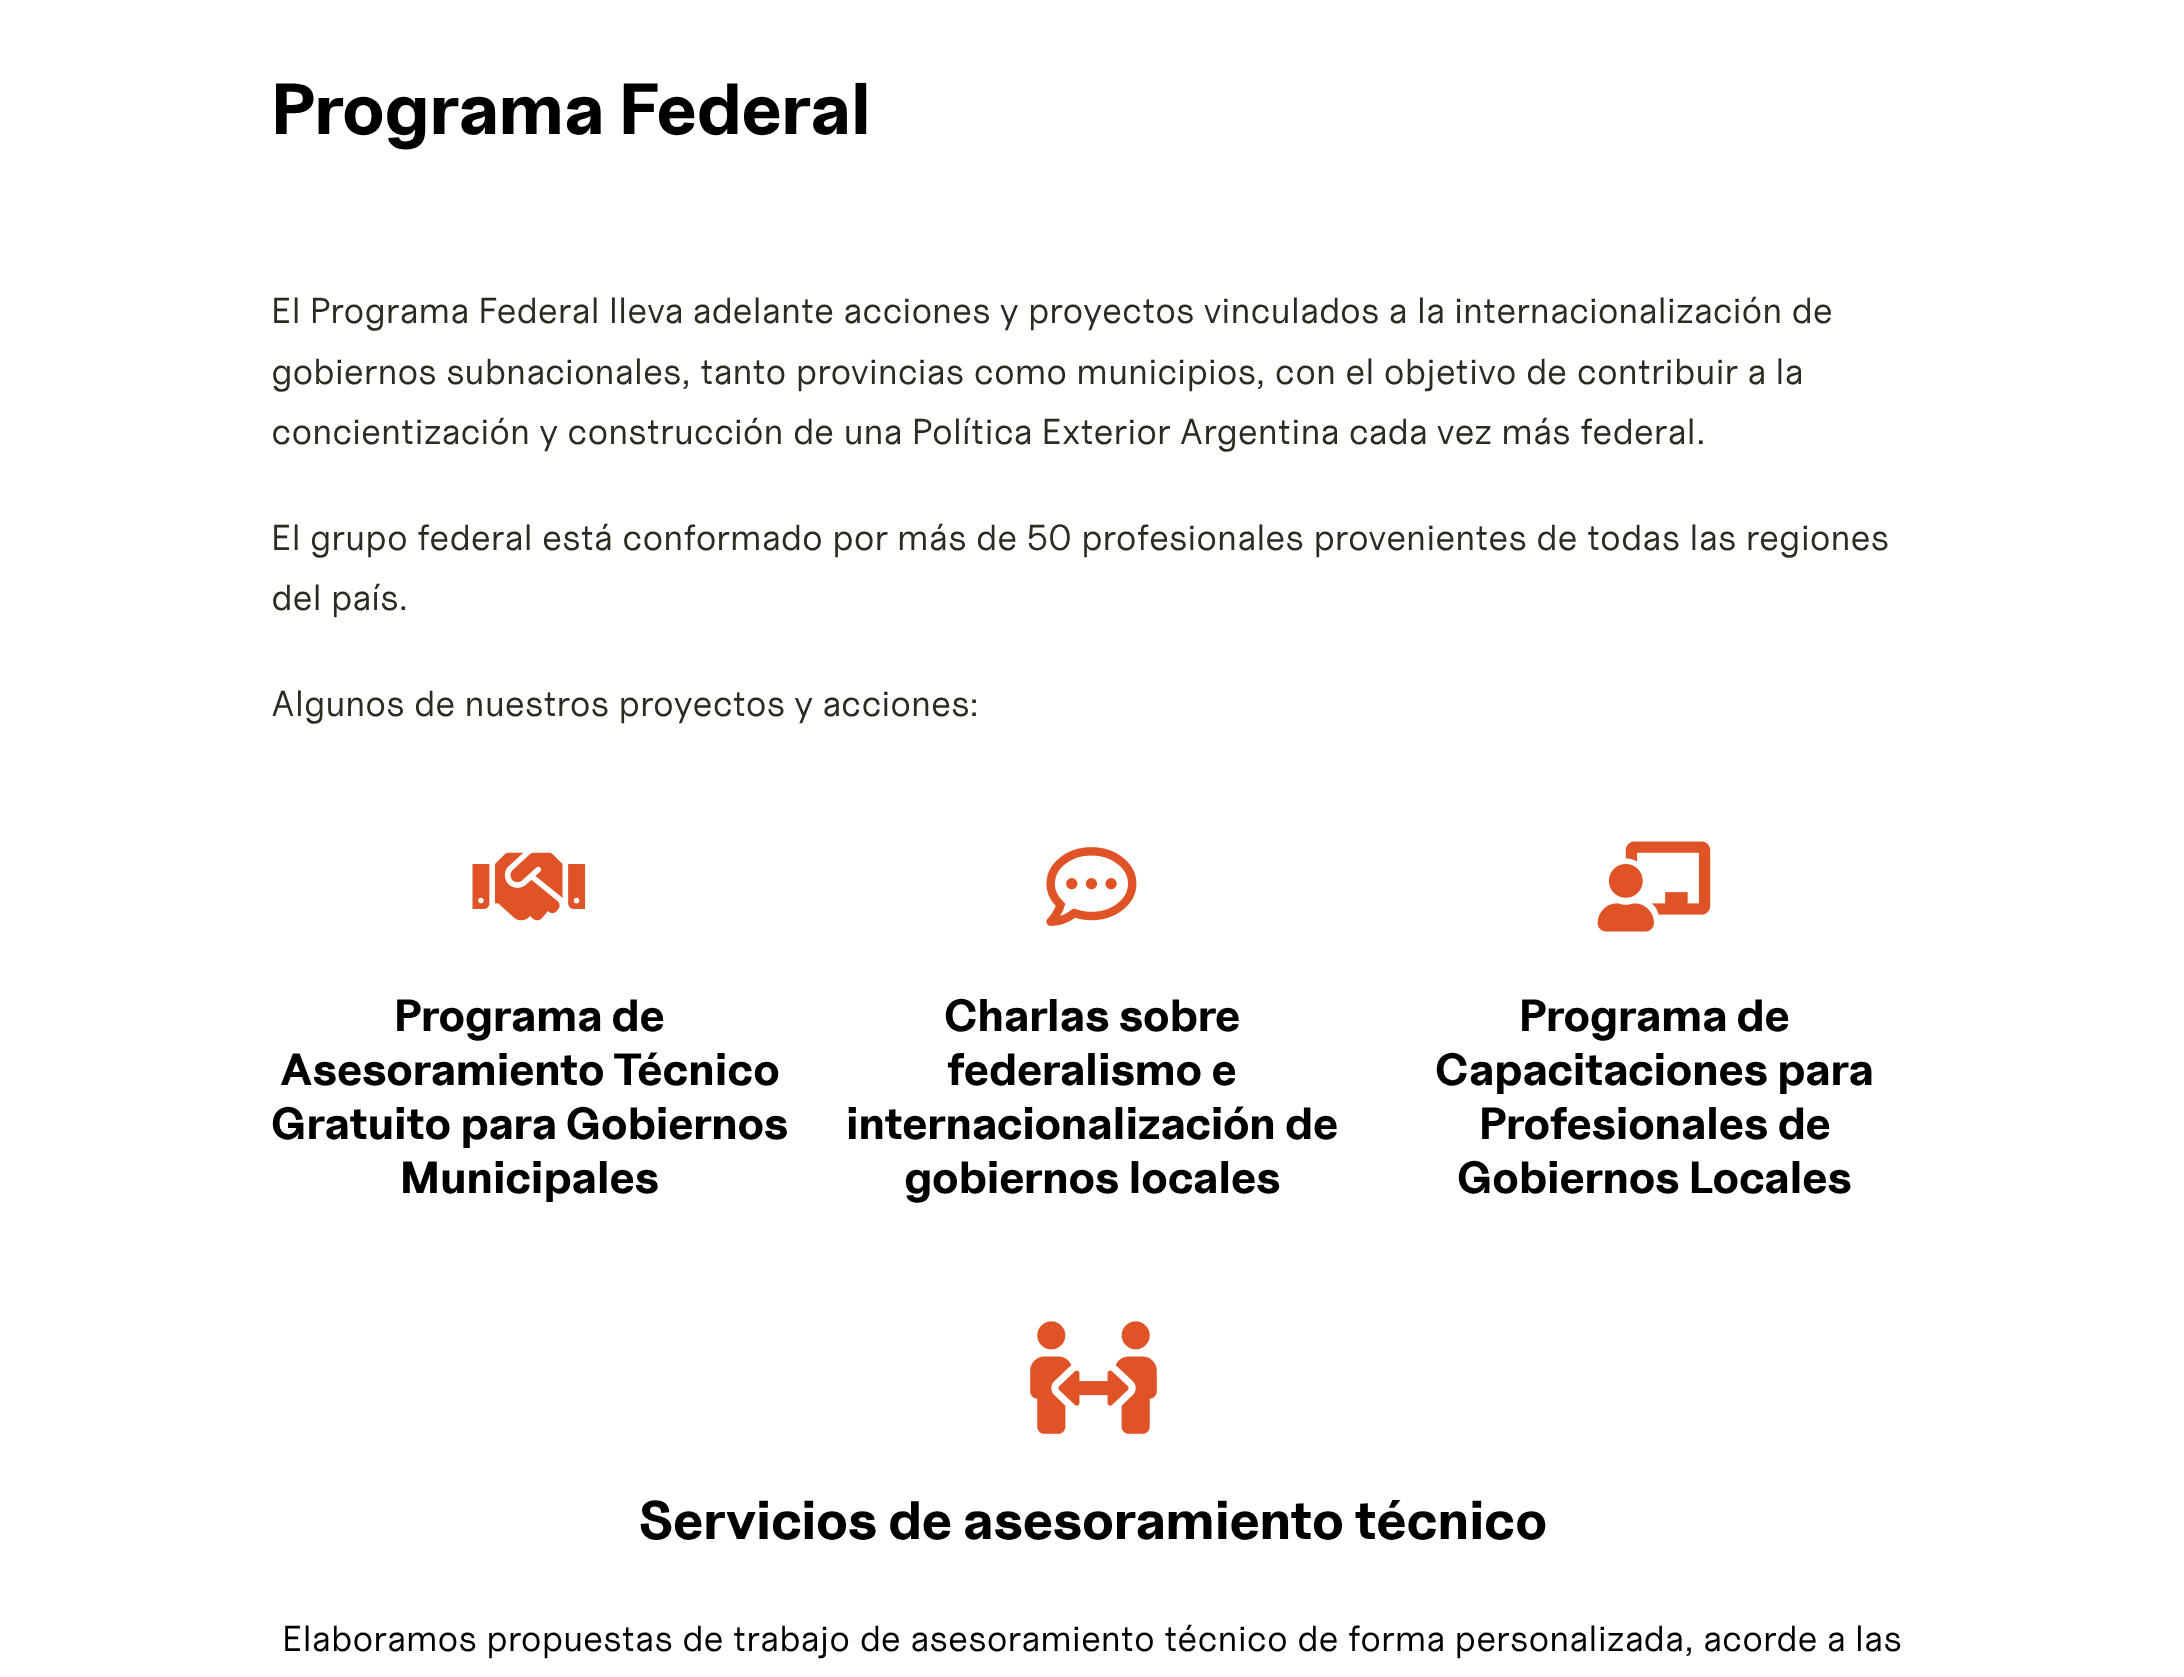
<!DOCTYPE html>
<meta charset="utf-8">
<style>body { margin: 0 } canvas { display: block }</style>
<canvas id="canvas" width="2184" height="1677"></canvas>
<script type="module">
  const canvas = document.getElementById("canvas");
  const g = canvas.getContext("2d");
  g.miterLimit = 4;
  g.fontKerning = "normal";
  function drawText(s, x, y, [font, color]) {
    g.font = font;
    g.fillStyle = color;
    g.fillText(s, x, y);
  }
  function fillBox(x, y, w, h, color) {
    g.fillStyle = color;
    g.fillRect(x, y, w, h);
  }
  async function drawPicture(src, x, y, w, h) {
    const img = new Image();
    img.src = src;
    await img.decode();
    g.drawImage(img, x, y, w, h);
  }

  const s1 = ["bold 72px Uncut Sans", "#000000"];
  const s2 = ["36px Uncut Sans", "#2D2A21"];
  const s3 = ["bold 45px Uncut Sans", "#000000"];
  const s4 = ["bold 54px Uncut Sans", "#000000"];
  const s5 = ["36px Uncut Sans", "#000000"];

  fillBox(0, 0, 2184, 1677, "#FFFFFF");
  drawText("Programa Federal", 271, 134, s1);
  drawText("El Programa Federal lleva adelante acciones y proyectos vinculados a la internacionalización de", 271, 323, s2);
  drawText("gobiernos subnacionales, tanto provincias como municipios, con el objetivo de contribuir a la", 271, 384, s2);
  drawText("concientización y construcción de una Política Exterior Argentina cada vez más federal.", 271, 444, s2);
  drawText("El grupo federal está conformado por más de 50 profesionales provenientes de todas las regiones", 271, 550, s2);
  drawText("del país.", 271, 610, s2);
  drawText("Algunos de nuestros proyectos y acciones:", 271, 716, s2);
  await drawPicture("pic1.png", 472, 852, 113, 69);
  drawText("Programa de", 394, 1031, s3);
  drawText("Asesoramiento Técnico", 280, 1085, s3);
  drawText("Gratuito para Gobiernos", 271, 1139, s3);
  drawText("Municipales", 400, 1193, s3);
  await drawPicture("pic2.png", 1046, 847, 91, 79);
  drawText("Charlas sobre", 944, 1031, s3);
  drawText("federalismo e", 947, 1085, s3);
  drawText("internacionalización de", 846, 1139, s3);
  drawText("gobiernos locales", 904, 1193, s3);
  await drawPicture("pic3.png", 1597, 841, 114, 91);
  drawText("Programa de", 1519, 1031, s3);
  drawText("Capacitaciones para", 1435, 1085, s3);
  drawText("Profesionales de", 1479, 1139, s3);
  drawText("Gobiernos Locales", 1457, 1193, s3);
  await drawPicture("pic4.png", 1030, 1321, 127, 113);
  drawText("Servicios de asesoramiento técnico", 638, 1539, s4);
  drawText("Elaboramos propuestas de trabajo de asesoramiento técnico de forma personalizada, acorde a las", 282, 1651, s5);
</script>
